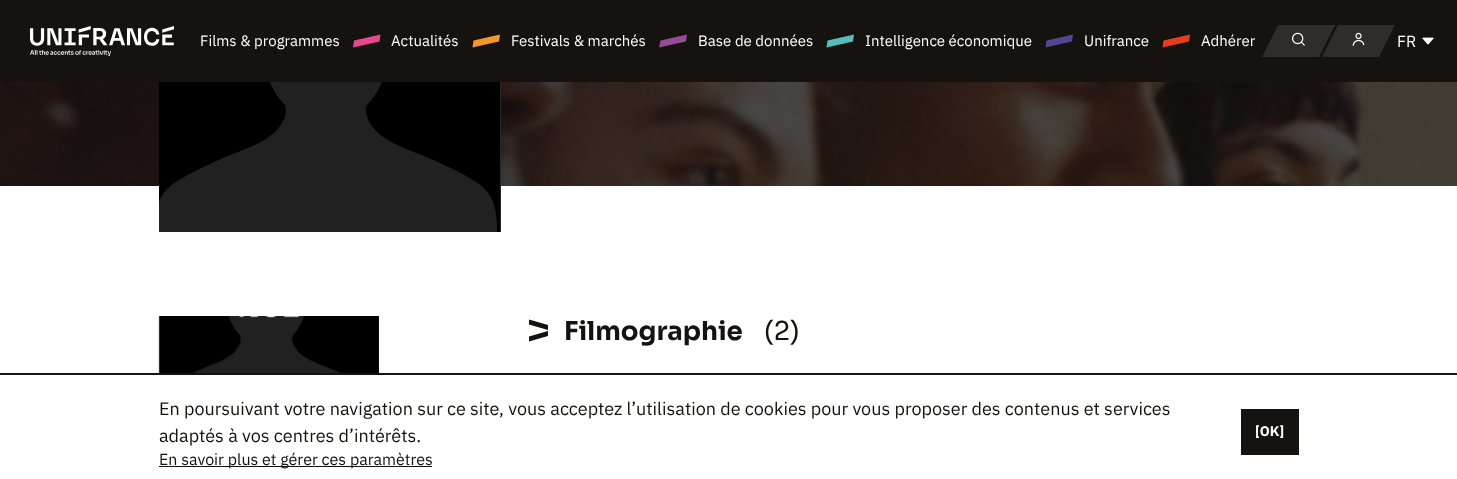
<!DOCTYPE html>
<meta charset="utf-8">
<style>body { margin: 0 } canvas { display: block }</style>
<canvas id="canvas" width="1457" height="479"></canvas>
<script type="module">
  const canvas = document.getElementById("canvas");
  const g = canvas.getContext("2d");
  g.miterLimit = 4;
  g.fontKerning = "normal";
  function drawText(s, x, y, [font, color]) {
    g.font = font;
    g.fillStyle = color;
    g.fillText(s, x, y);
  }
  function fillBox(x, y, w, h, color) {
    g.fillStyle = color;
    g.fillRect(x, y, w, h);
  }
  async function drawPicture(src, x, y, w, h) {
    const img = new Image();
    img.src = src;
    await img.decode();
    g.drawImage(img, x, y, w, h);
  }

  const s1 = ["15px IBM Plex Sans", "#FFFFFF"];
  const s2 = ["16px IBM Plex Sans", "#FFFFFF"];
  const s3 = ["bold 26px Sora", "#151210"];
  const s4 = ["26px Sora", "#151210"];
  const s5 = ["18px IBM Plex Sans", "#151210"];
  const s6 = ["16px IBM Plex Sans", "#151210"];
  const s7 = ["bold 14px IBM Plex Sans", "#FFFFFF"];

  fillBox(0, 0, 1457, 479, "#FFFFFF");
  fillBox(0, 0, 1457, 82, "#151210");
  await drawPicture("pic1.png", 30, 26, 144, 30);
  drawText("Films & programmes", 200, 46, s1);
  g.fillStyle = "#E94591";
  g.beginPath();
  g.moveTo(354, 40.5);
  g.lineTo(380.5, 34.5);
  g.lineTo(379.5, 41.5);
  g.lineTo(353, 47.5);
  g.closePath();
  g.fill();
  drawText("Actualités", 391, 46, s1);
  g.fillStyle = "#F49726";
  g.beginPath();
  g.moveTo(473.5, 40.5);
  g.lineTo(500, 34.5);
  g.lineTo(499, 41.5);
  g.lineTo(472.5, 47.5);
  g.closePath();
  g.fill();
  drawText("Festivals & marchés", 511, 46, s1);
  g.fillStyle = "#954B95";
  g.beginPath();
  g.moveTo(660.5, 40.5);
  g.lineTo(687, 34.5);
  g.lineTo(686, 41.5);
  g.lineTo(659, 47.5);
  g.closePath();
  g.fill();
  drawText("Base de données", 698, 46, s1);
  g.fillStyle = "#55BDBA";
  g.beginPath();
  g.moveTo(827.5, 40.5);
  g.lineTo(854, 34.5);
  g.lineTo(853, 41.5);
  g.lineTo(826.5, 47.5);
  g.closePath();
  g.fill();
  drawText("Intelligence économique", 865, 46, s1);
  g.fillStyle = "#554593";
  g.beginPath();
  g.moveTo(1046.5, 40.5);
  g.lineTo(1073, 34.5);
  g.lineTo(1072, 41.5);
  g.lineTo(1045.5, 47.5);
  g.closePath();
  g.fill();
  drawText("Unifrance", 1084, 46, s1);
  g.fillStyle = "#E73E1A";
  g.beginPath();
  g.moveTo(1163.5, 40.5);
  g.lineTo(1190, 34.5);
  g.lineTo(1189, 41.5);
  g.lineTo(1162.5, 47.5);
  g.closePath();
  g.fill();
  drawText("Adhérer", 1201, 46, s1);
  g.fillStyle = "#302C2A";
  g.beginPath();
  g.moveTo(1338, 25);
  g.lineTo(1395, 25);
  g.lineTo(1379, 57);
  g.lineTo(1322, 57);
  g.closePath();
  g.fill();
  g.fillStyle = "#2F2C2A";
  g.beginPath();
  g.moveTo(1278, 25);
  g.lineTo(1335, 25);
  g.lineTo(1319, 57);
  g.lineTo(1262, 57);
  g.closePath();
  g.fill();
  await drawPicture("pic2.png", 1292, 32, 13, 14);
  await drawPicture("pic3.png", 1352, 32, 13, 14);
  await drawPicture("pic4.png", 1422, 37, 12, 8);
  drawText("FR", 1397, 47, s2);
  await drawPicture("pic5.png", 0, 82, 1457, 104);
  await drawPicture("pic6.png", 159, 82, 342, 150);
  await drawPicture("pic7.png", 158, 316, 221, 57);
  g.fillStyle = "#151210";
  g.beginPath();
  g.moveTo(529, 336.5);
  g.lineTo(529, 341.5);
  g.lineTo(548, 336);
  g.lineTo(548, 331);
  g.closePath();
  g.moveTo(529, 319.5);
  g.lineTo(529, 324.5);
  g.lineTo(548, 330);
  g.lineTo(548, 325);
  g.closePath();
  g.fill();
  drawText("Filmographie", 564, 340, s3);
  drawText("(2)", 764, 340, s4);
  fillBox(0, 373, 1457, 2, "#151210");
  drawText("En poursuivant votre navigation sur ce site, vous acceptez l’utilisation de cookies pour vous proposer des contenus et services", 159, 415, s5);
  drawText("adaptés à vos centres d’intérêts.", 159, 442, s5);
  fillBox(159, 466, 273, 1, "#151210");
  drawText("En savoir plus et gérer ces paramètres", 159, 465, s6);
  fillBox(1241, 409, 58, 46, "#151210");
  drawText("[OK]", 1255, 436, s7);
</script>
